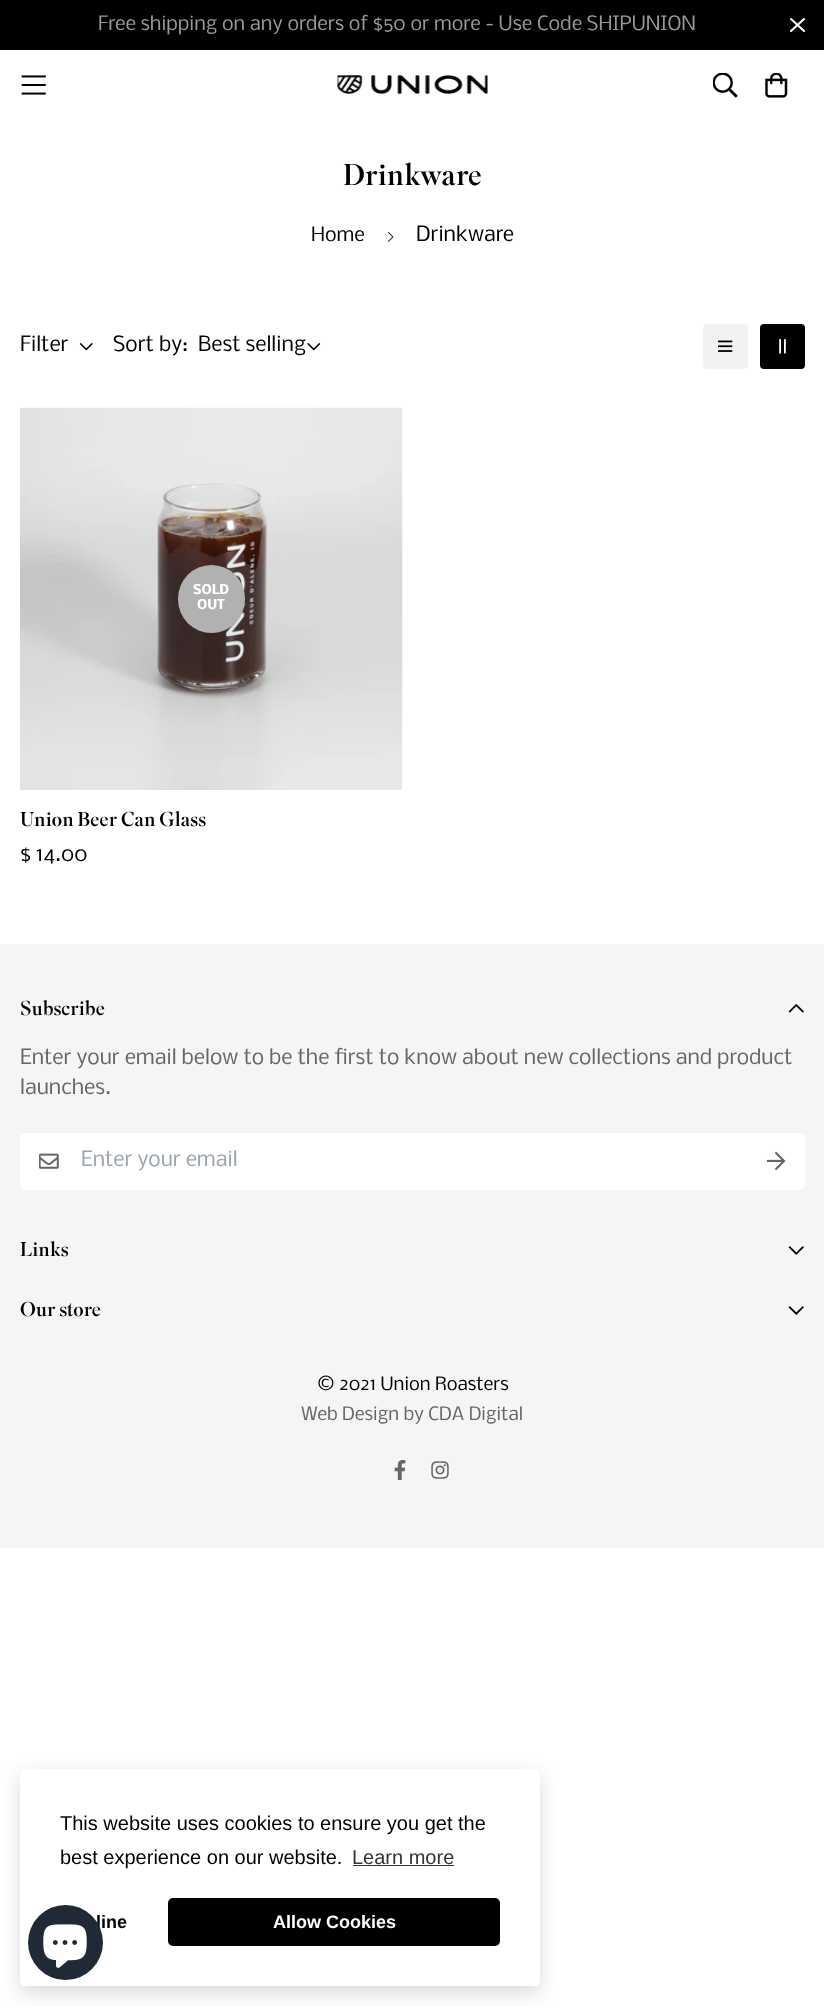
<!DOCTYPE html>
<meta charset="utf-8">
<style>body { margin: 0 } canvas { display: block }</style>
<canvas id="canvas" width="824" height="2006"></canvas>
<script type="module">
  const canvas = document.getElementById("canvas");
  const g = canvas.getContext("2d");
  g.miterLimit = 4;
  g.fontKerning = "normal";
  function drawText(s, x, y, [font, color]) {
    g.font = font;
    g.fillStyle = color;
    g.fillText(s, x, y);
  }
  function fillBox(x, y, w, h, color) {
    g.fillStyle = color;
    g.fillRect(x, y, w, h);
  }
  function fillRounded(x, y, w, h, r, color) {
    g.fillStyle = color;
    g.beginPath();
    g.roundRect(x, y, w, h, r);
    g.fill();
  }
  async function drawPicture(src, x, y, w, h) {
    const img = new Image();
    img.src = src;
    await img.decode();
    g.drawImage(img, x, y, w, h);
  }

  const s1 = ["18.75px Nobile", "#999999"];
  const s2 = ["30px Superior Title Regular", "#000000"];
  const s3 = ["18.75px Nobile", "#000000"];
  const s4 = ["20px Nobile", "#000000"];
  const s5 = ["bold 12.5px Nobile", "#FFFFFF"];
  const s6 = ["20px Superior Title Regular", "#000000"];
  const s7 = ["20px Nobile", "#666666"];
  const s8 = ["20px Nobile", "#9CA3AF"];
  const s9 = ["17.5px Nobile", "#000000"];
  const s10 = ["17.5px Nobile", "#666666"];
  const s11 = ["20px Liberation Sans", "#000000"];
  const s12 = ["20px Liberation Sans", "#333333"];
  const s13 = ["bold 18px Liberation Sans", "#000000"];
  const s14 = ["bold 18px Liberation Sans", "#FFFFFF"];

  fillBox(0, 0, 824, 2006, "#FFFFFF");
  fillBox(0, 0, 824, 50, "#000000");
  drawText("Free shipping on any orders of $50 or more - Use Code SHIPUNION", 98, 30, s1);
  g.beginPath();
  g.moveTo(791, 31);
  g.lineTo(804, 19);
  g.moveTo(791, 19);
  g.lineTo(804, 31);
  g.strokeStyle = "#FFFFFF";
  g.lineWidth = 2.1;
  g.lineCap = "round";
  g.lineJoin = "round";
  g.stroke();
  await drawPicture("pic1.png", 21, 75, 25, 20);
  await drawPicture("pic2.png", 337, 75, 151, 19);
  await drawPicture("pic3.png", 713, 73, 25, 25);
  await drawPicture("pic4.png", 765, 73, 23, 25);
  drawText("Drinkware", 343, 185, s2);
  drawText("Home", 311, 241, s3);
  await drawPicture("pic5.png", 387, 232, 7, 10);
  drawText("Drinkware", 416, 241, s4);
  drawText("Filter", 20, 351, s4);
  await drawPicture("pic6.png", 79, 343, 14, 8);
  drawText("Sort by:", 113, 351, s4);
  drawText("Best selling", 198, 351, s4);
  await drawPicture("pic7.png", 307, 343, 14, 8);
  fillRounded(703, 324, 45, 45, 4, "#F2F2F2");
  await drawPicture("pic8.png", 718, 340, 15, 12);
  fillRounded(760, 324, 45, 45, 4, "#000000");
  await drawPicture("pic9.png", 779, 339, 7, 15);
  await drawPicture("pic10.png", 20, 407, 383, 383);
  fillRounded(178, 565, 67, 68, 33.5, "#B1B1B1");
  drawText("SOLD", 193, 594, s5);
  drawText("OUT", 197, 609, s5);
  drawText("Union Beer Can Glass", 20, 826, s6);
  drawText("$ 14.00", 20, 861, s4);
  fillBox(0, 944, 824, 604, "#F5F5F5");
  drawText("Subscribe", 20, 1015, s6);
  await drawPicture("pic11.png", 788, 1004, 16, 9);
  drawText("Enter your email below to be the first to know about new collections and product", 20, 1064, s7);
  drawText("launches.", 20, 1094, s7);
  fillRounded(20, 1133, 785, 57, 5, "#FFFFFF");
  await drawPicture("pic12.png", 39, 1153, 20, 16);
  drawText("Enter your email", 81, 1166, s8);
  await drawPicture("pic13.png", 766, 1151, 20, 20);
  drawText("Links", 20, 1256, s6);
  await drawPicture("pic14.png", 788, 1246, 16, 9);
  drawText("Our store", 20, 1316, s6);
  await drawPicture("pic14.png", 788, 1306, 16, 9);
  drawText("© 2021 Union Roasters", 317, 1390, s9);
  drawText("Web Design by CDA Digital", 301, 1420, s10);
  await drawPicture("pic15.png", 394, 1460, 12, 20);
  await drawPicture("pic16.png", 431, 1461, 18, 18);
  g.fillStyle = "rgba(0, 0, 0, 0.15)";
  g.filter = "blur(9.5px)";
  g.beginPath();
  g.roundRect(20, 1775, 520, 218, 5);
  g.fill();
  g.filter = "none";
  fillRounded(20, 1769, 520, 217, 5, "#FFFFFF");
  drawText("This website uses cookies to ensure you get the", 60, 1830, s11);
  drawText("best experience on our website.", 60, 1864, s11);
  drawText("Learn more", 352, 1864, s12);
  fillBox(353, 1865, 101, 1, "#333333");
  drawText("line", 96, 1928, s13);
  fillRounded(168, 1898, 332, 48, 5, "#000000");
  drawText("Allow Cookies", 273, 1928, s14);
  g.fillStyle = "#202A36";
  g.beginPath();
  g.arc(65.5, 1942.5, 37.5, 0, Math.PI * 2);
  g.fill();
  await drawPicture("pic17.png", 43, 1924, 44, 44);
</script>
